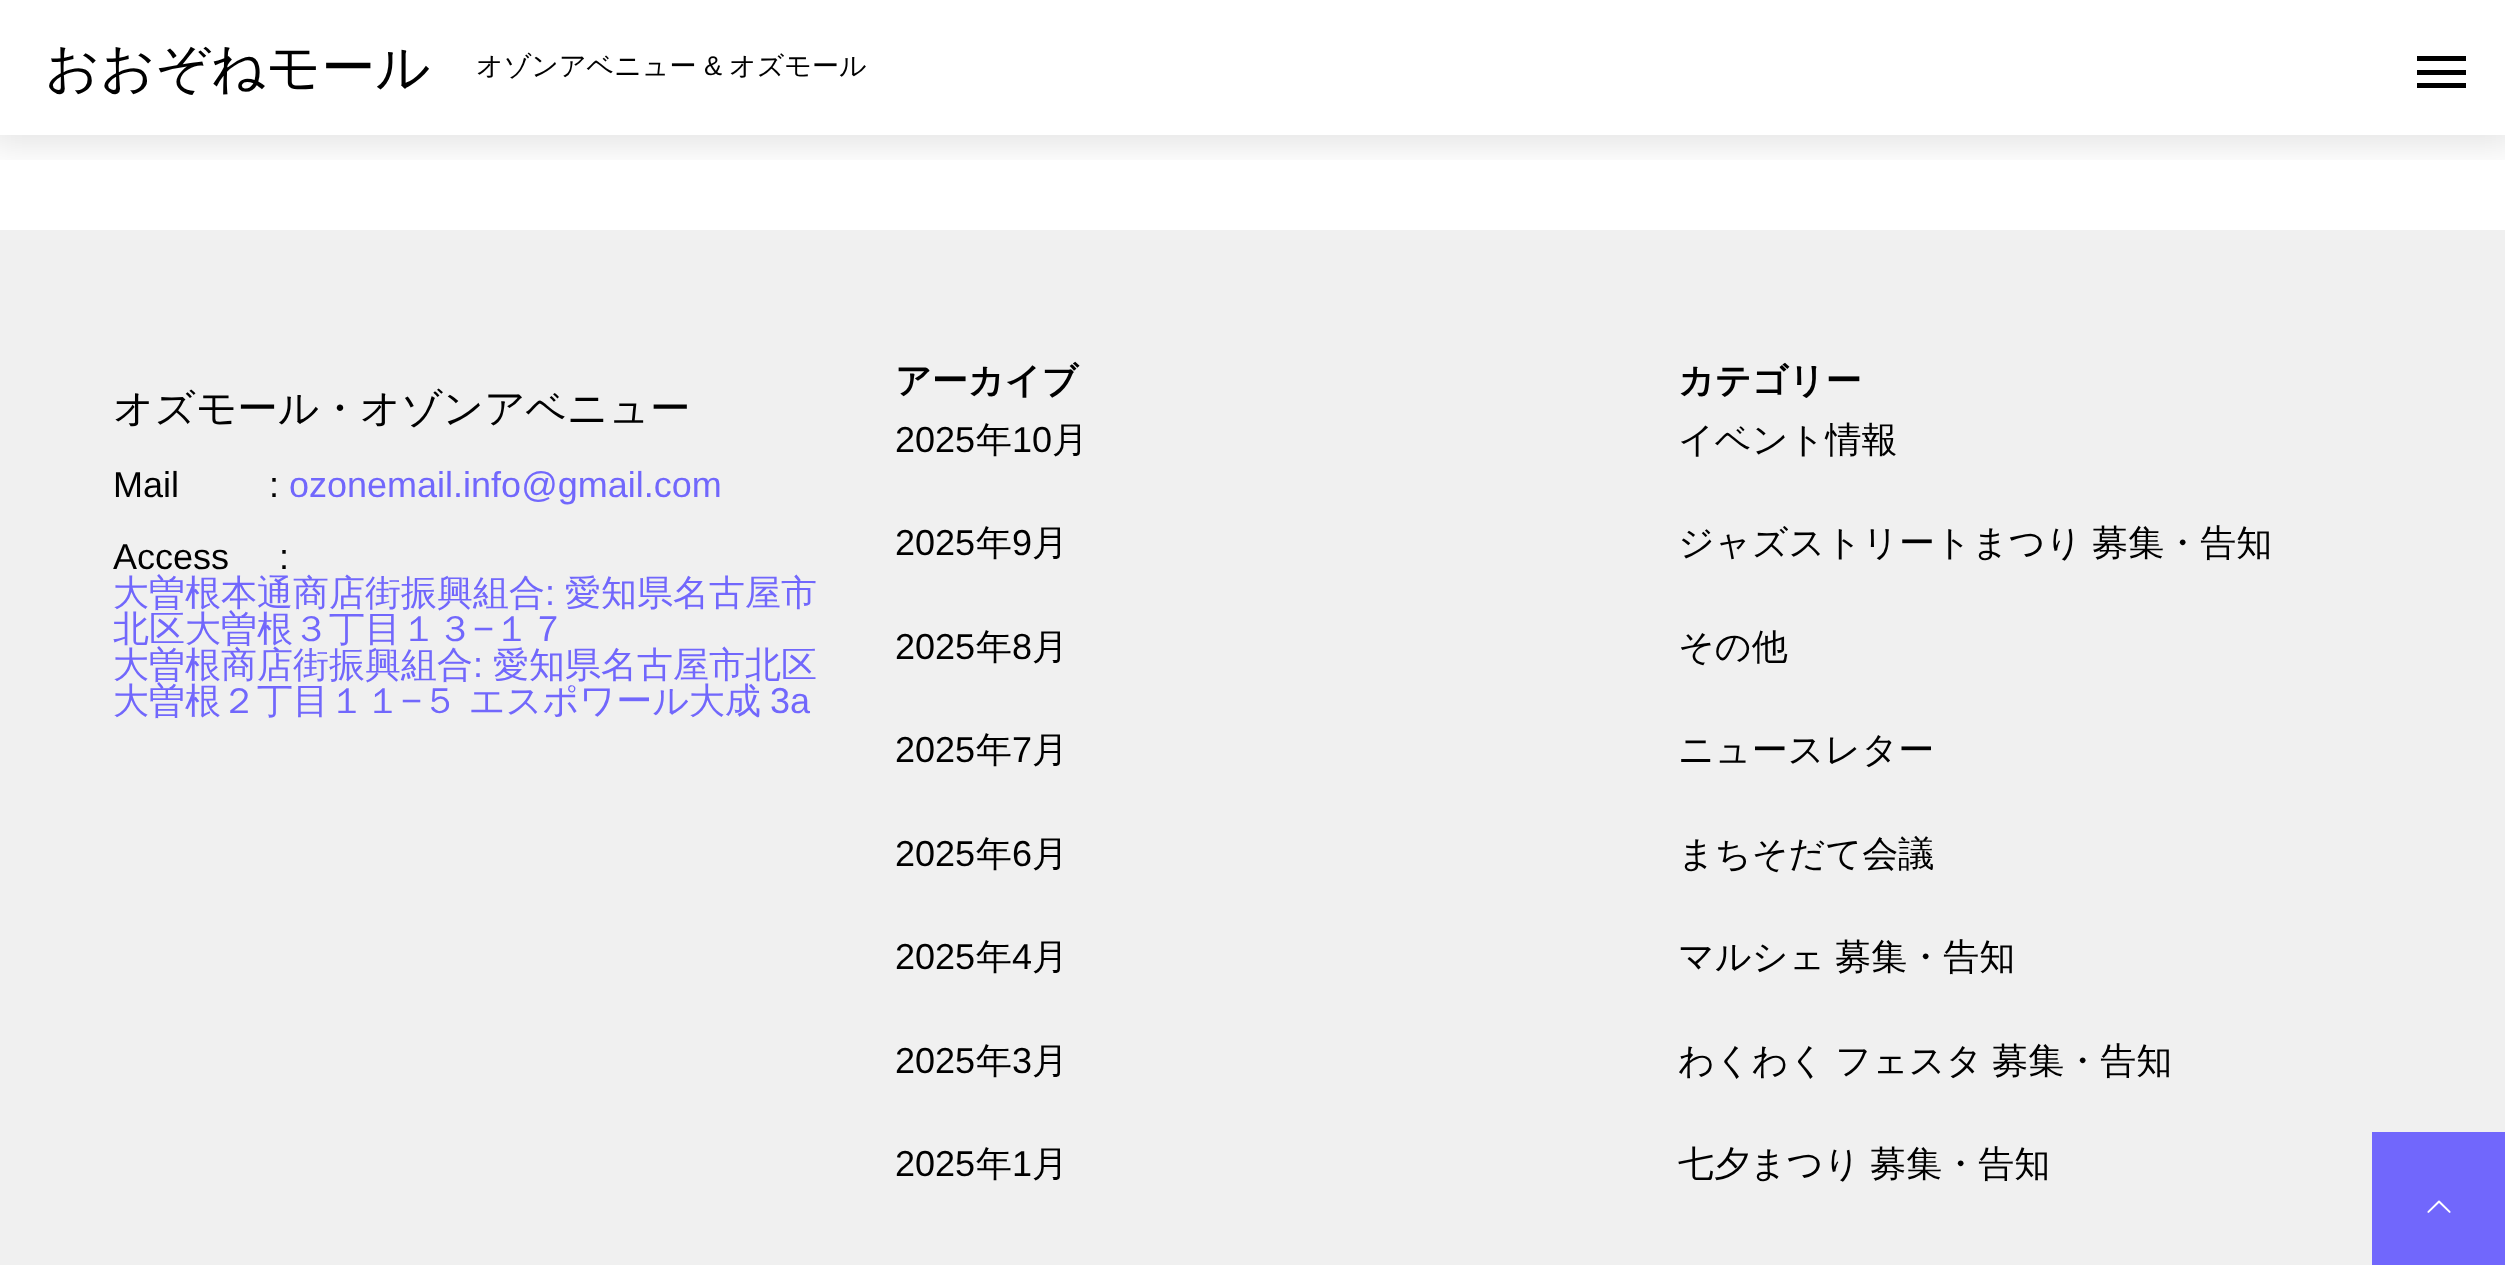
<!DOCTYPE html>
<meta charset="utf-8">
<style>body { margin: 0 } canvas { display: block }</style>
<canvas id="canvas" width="2505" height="1265"></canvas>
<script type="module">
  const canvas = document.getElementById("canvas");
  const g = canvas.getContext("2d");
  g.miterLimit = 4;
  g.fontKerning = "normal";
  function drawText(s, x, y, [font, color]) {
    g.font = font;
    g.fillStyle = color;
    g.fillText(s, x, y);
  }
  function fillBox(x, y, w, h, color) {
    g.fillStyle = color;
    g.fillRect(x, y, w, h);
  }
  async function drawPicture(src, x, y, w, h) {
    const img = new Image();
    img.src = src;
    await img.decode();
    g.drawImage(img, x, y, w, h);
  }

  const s1 = ["500 54px WenQuanYi Zen Hei", "#000000"];
  const s2 = ["500 27px WenQuanYi Zen Hei", "#000000"];
  const s3 = ["27px Liberation Sans", "#000000"];
  const s4 = ["500 40.5px WenQuanYi Zen Hei", "#000000"];
  const s5 = ["36px Liberation Sans", "#000000"];
  const s6 = ["36px Liberation Sans", "#7167FC"];
  const s7 = ["500 36px WenQuanYi Zen Hei", "#7167FC"];
  const s8 = ["bold 36px WenQuanYi Zen Hei", "#000000"];
  const s9 = ["500 36px WenQuanYi Zen Hei", "#000000"];

  fillBox(0, 0, 2505, 1265, "#FFFFFF");
  g.save();
  g.beginPath();
  g.rect(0, 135, 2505, 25);
  g.clip();
  g.fillStyle = "rgba(0, 0, 0, 0.1)";
  g.filter = "blur(17px)";
  g.beginPath();
  g.rect(-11, -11, 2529, 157);
  g.fill();
  g.filter = "none";
  g.restore();
  drawText("おおぞねモール", 45, 86, s1);
  drawText("オゾンアベニュー", 476, 75, s2);
  drawText("&", 704, 75, s3);
  drawText("オズモール", 729, 75, s2);
  fillBox(2417, 56, 49, 5, "#000000");
  fillBox(2417, 70, 49, 5, "#000000");
  fillBox(2417, 83, 49, 5, "#000000");
  fillBox(0, 230, 2505, 1035, "#F0F0F0");
  drawText("オズモール・オゾンアベニュー", 113, 422, s4);
  drawText("Mail         :", 113, 497, s5);
  drawText("ozonemail.info@gmail.com", 289, 497, s6);
  drawText("Access     :", 113, 569, s5);
  drawText("大曽根本通商店街振興組合", 113, 605, s7);
  drawText(":", 545, 605, s6);
  drawText("愛知県名古屋市", 565, 605, s7);
  drawText("北区大曽根３丁目１３", 113, 641, s7);
  drawText("−", 473, 641, s6);
  drawText("１７", 494, 641, s7);
  drawText("大曽根商店街振興組合", 113, 677, s7);
  drawText(":", 473, 677, s6);
  drawText("愛知県名古屋市北区", 493, 677, s7);
  drawText("大曽根２丁目１１", 113, 713, s7);
  drawText("−", 401, 713, s6);
  drawText("５ エスポワール大成", 422, 713, s7);
  drawText("3a", 770, 713, s6);
  drawText("アーカイブ", 895, 393, s8);
  drawText("2025", 895, 452, s5);
  drawText("年", 976, 452, s9);
  drawText("10", 1012, 452, s5);
  drawText("月", 1052, 452, s9);
  drawText("2025", 895, 555, s5);
  drawText("年", 976, 555, s9);
  drawText("9", 1012, 555, s5);
  drawText("月", 1032, 555, s9);
  drawText("2025", 895, 659, s5);
  drawText("年", 976, 659, s9);
  drawText("8", 1012, 659, s5);
  drawText("月", 1032, 659, s9);
  drawText("2025", 895, 762, s5);
  drawText("年", 976, 762, s9);
  drawText("7", 1012, 762, s5);
  drawText("月", 1032, 762, s9);
  drawText("2025", 895, 866, s5);
  drawText("年", 976, 866, s9);
  drawText("6", 1012, 866, s5);
  drawText("月", 1032, 866, s9);
  drawText("2025", 895, 969, s5);
  drawText("年", 976, 969, s9);
  drawText("4", 1012, 969, s5);
  drawText("月", 1032, 969, s9);
  drawText("2025", 895, 1073, s5);
  drawText("年", 976, 1073, s9);
  drawText("3", 1012, 1073, s5);
  drawText("月", 1032, 1073, s9);
  drawText("2025", 895, 1176, s5);
  drawText("年", 976, 1176, s9);
  drawText("1", 1012, 1176, s5);
  drawText("月", 1032, 1176, s9);
  drawText("カテゴリー", 1678, 393, s8);
  drawText("イベント情報", 1678, 452, s9);
  g.wordSpacing = "-1px";
  drawText("ジャズストリートまつり 募集・告知", 1678, 555, s9);
  g.wordSpacing = "0px";
  drawText("その他", 1678, 659, s9);
  drawText("ニュースレター", 1678, 762, s9);
  drawText("まちそだて会議", 1678, 866, s9);
  g.wordSpacing = "-1px";
  drawText("マルシェ 募集・告知", 1678, 969, s9);
  drawText("わくわく フェスタ 募集・告知", 1678, 1073, s9);
  drawText("七夕まつり 募集・告知", 1678, 1176, s9);
  fillBox(2372, 1132, 133, 133, "#7167FC");
  await drawPicture("pic1.png", 2427, 1200, 24, 13);
</script>
